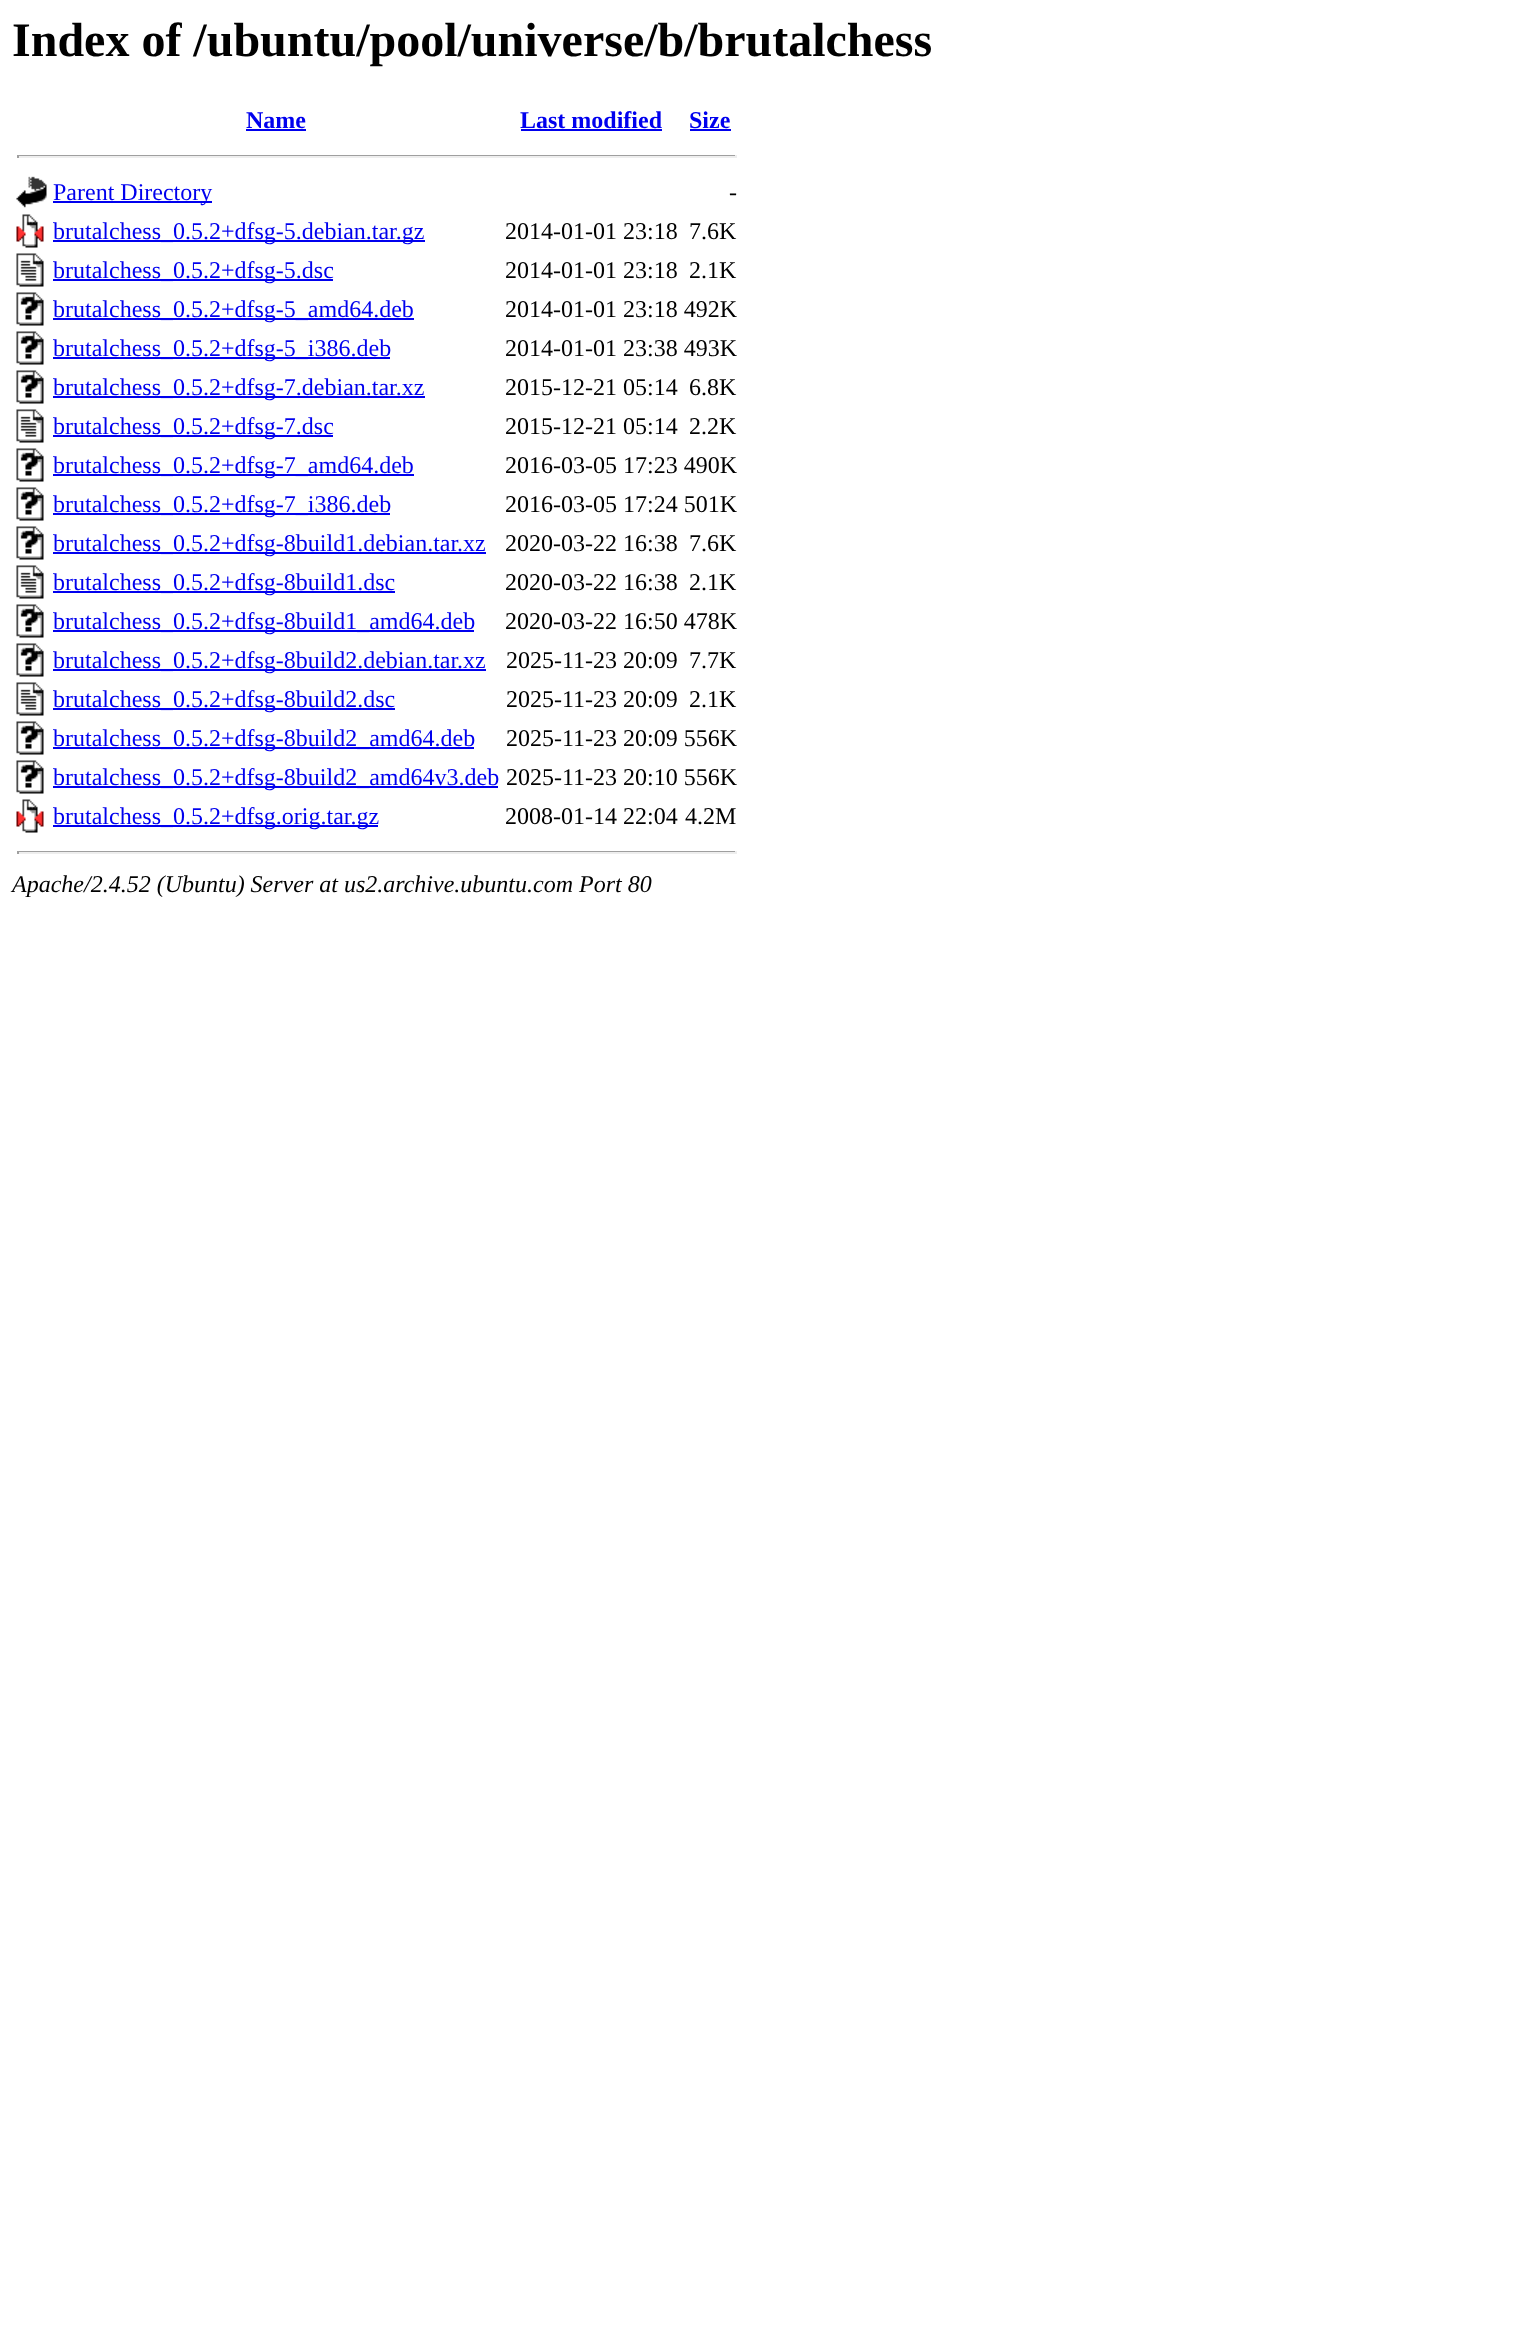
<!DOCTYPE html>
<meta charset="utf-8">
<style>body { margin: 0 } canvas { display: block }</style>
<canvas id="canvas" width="1538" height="2341"></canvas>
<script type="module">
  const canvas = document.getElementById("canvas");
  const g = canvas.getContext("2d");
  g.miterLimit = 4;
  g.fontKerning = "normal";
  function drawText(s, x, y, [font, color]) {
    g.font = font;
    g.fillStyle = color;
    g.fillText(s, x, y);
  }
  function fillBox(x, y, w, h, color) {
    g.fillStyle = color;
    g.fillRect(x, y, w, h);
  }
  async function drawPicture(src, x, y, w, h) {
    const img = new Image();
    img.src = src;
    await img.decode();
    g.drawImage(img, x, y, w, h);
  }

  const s1 = ["bold 48px Liberation Serif", "#000000"];
  const s2 = ["bold 24px Liberation Serif", "#0000EE"];
  const s3 = ["24px Liberation Serif", "#0000EE"];
  const s4 = ["24px Liberation Serif", "#000000"];
  const s5 = ["italic 24px Liberation Serif", "#000000"];

  fillBox(0, 0, 1538, 2341, "#FFFFFF");
  drawText("Index of /ubuntu/pool/universe/b/brutalchess", 12, 56, s1);
  drawText("Name", 246, 128, s2);
  fillBox(246, 129, 60, 2, "#0000EE");
  drawText("Last modified", 520, 128, s2);
  fillBox(521, 129, 141, 2, "#0000EE");
  drawText("Size", 689, 128, s2);
  fillBox(690, 129, 41, 2, "#0000EE");
  fillBox(17, 155, 720, 1, "#9F9F9F");
  fillBox(735, 155, 2, 3, "#EEEEEE");
  fillBox(17, 156, 720, 2, "#EEEEEE");
  fillBox(17, 155, 2, 3, "#9F9F9F");
  await drawPicture("pic1.png", 16, 176, 31, 32);
  fillBox(53, 201, 159, 2, "#0000EE");
  drawText("Parent Directory", 53, 200, s3);
  drawText("-", 729, 200, s4);
  await drawPicture("pic2.png", 16, 214, 28, 34);
  fillBox(53, 240, 372, 2, "#0000EE");
  drawText("brutalchess_0.5.2+dfsg-5.debian.tar.gz", 53, 239, s3);
  drawText("2014-01-01 23:18", 505, 239, s4);
  drawText("7.6K", 689, 239, s4);
  await drawPicture("pic3.png", 16, 253, 28, 34);
  fillBox(53, 279, 280, 2, "#0000EE");
  drawText("brutalchess_0.5.2+dfsg-5.dsc", 53, 278, s3);
  drawText("2014-01-01 23:18", 505, 278, s4);
  drawText("2.1K", 689, 278, s4);
  await drawPicture("pic4.png", 16, 292, 28, 34);
  fillBox(53, 318, 361, 2, "#0000EE");
  drawText("brutalchess_0.5.2+dfsg-5_amd64.deb", 53, 317, s3);
  drawText("2014-01-01 23:18 492K", 505, 317, s4);
  await drawPicture("pic4.png", 16, 331, 28, 34);
  fillBox(53, 357, 337, 2, "#0000EE");
  drawText("brutalchess_0.5.2+dfsg-5_i386.deb", 53, 356, s3);
  drawText("2014-01-01 23:38 493K", 505, 356, s4);
  await drawPicture("pic4.png", 16, 370, 28, 34);
  fillBox(53, 396, 372, 2, "#0000EE");
  drawText("brutalchess_0.5.2+dfsg-7.debian.tar.xz", 53, 395, s3);
  drawText("2015-12-21 05:14", 505, 395, s4);
  drawText("6.8K", 689, 395, s4);
  await drawPicture("pic3.png", 16, 409, 28, 34);
  fillBox(53, 435, 280, 2, "#0000EE");
  drawText("brutalchess_0.5.2+dfsg-7.dsc", 53, 434, s3);
  drawText("2015-12-21 05:14", 505, 434, s4);
  drawText("2.2K", 689, 434, s4);
  await drawPicture("pic4.png", 16, 448, 28, 34);
  fillBox(53, 474, 361, 2, "#0000EE");
  drawText("brutalchess_0.5.2+dfsg-7_amd64.deb", 53, 473, s3);
  drawText("2016-03-05 17:23 490K", 505, 473, s4);
  await drawPicture("pic4.png", 16, 487, 28, 34);
  fillBox(53, 513, 337, 2, "#0000EE");
  drawText("brutalchess_0.5.2+dfsg-7_i386.deb", 53, 512, s3);
  drawText("2016-03-05 17:24 501K", 505, 512, s4);
  await drawPicture("pic4.png", 16, 526, 28, 34);
  fillBox(53, 552, 433, 2, "#0000EE");
  drawText("brutalchess_0.5.2+dfsg-8build1.debian.tar.xz", 53, 551, s3);
  drawText("2020-03-22 16:38", 505, 551, s4);
  drawText("7.6K", 689, 551, s4);
  await drawPicture("pic3.png", 16, 565, 28, 34);
  fillBox(53, 591, 342, 2, "#0000EE");
  drawText("brutalchess_0.5.2+dfsg-8build1.dsc", 53, 590, s3);
  drawText("2020-03-22 16:38", 505, 590, s4);
  drawText("2.1K", 689, 590, s4);
  await drawPicture("pic4.png", 16, 604, 28, 34);
  fillBox(53, 630, 421, 2, "#0000EE");
  drawText("brutalchess_0.5.2+dfsg-8build1_amd64.deb", 53, 629, s3);
  drawText("2020-03-22 16:50 478K", 505, 629, s4);
  await drawPicture("pic4.png", 16, 643, 28, 34);
  fillBox(53, 669, 433, 2, "#0000EE");
  drawText("brutalchess_0.5.2+dfsg-8build2.debian.tar.xz", 53, 668, s3);
  drawText("2025-11-23 20:09", 506, 668, s4);
  drawText("7.7K", 689, 668, s4);
  await drawPicture("pic3.png", 16, 682, 28, 34);
  fillBox(53, 708, 342, 2, "#0000EE");
  drawText("brutalchess_0.5.2+dfsg-8build2.dsc", 53, 707, s3);
  drawText("2025-11-23 20:09", 506, 707, s4);
  drawText("2.1K", 689, 707, s4);
  await drawPicture("pic4.png", 16, 721, 28, 34);
  fillBox(53, 747, 421, 2, "#0000EE");
  drawText("brutalchess_0.5.2+dfsg-8build2_amd64.deb", 53, 746, s3);
  drawText("2025-11-23 20:09 556K", 506, 746, s4);
  await drawPicture("pic4.png", 16, 760, 28, 34);
  fillBox(53, 786, 445, 2, "#0000EE");
  drawText("brutalchess_0.5.2+dfsg-8build2_amd64v3.deb", 53, 785, s3);
  drawText("2025-11-23 20:10 556K", 506, 785, s4);
  await drawPicture("pic2.png", 16, 799, 28, 34);
  fillBox(53, 825, 325, 2, "#0000EE");
  drawText("brutalchess_0.5.2+dfsg.orig.tar.gz", 53, 824, s3);
  drawText("2008-01-14 22:04", 505, 824, s4);
  drawText("4.2M", 685, 824, s4);
  fillBox(17, 851, 720, 1, "#9F9F9F");
  fillBox(735, 851, 2, 3, "#EEEEEE");
  fillBox(17, 852, 720, 2, "#EEEEEE");
  fillBox(17, 851, 2, 3, "#9F9F9F");
  drawText("Apache/2.4.52 (Ubuntu) Server at us2.archive.ubuntu.com Port 80", 12, 892, s5);
</script>
